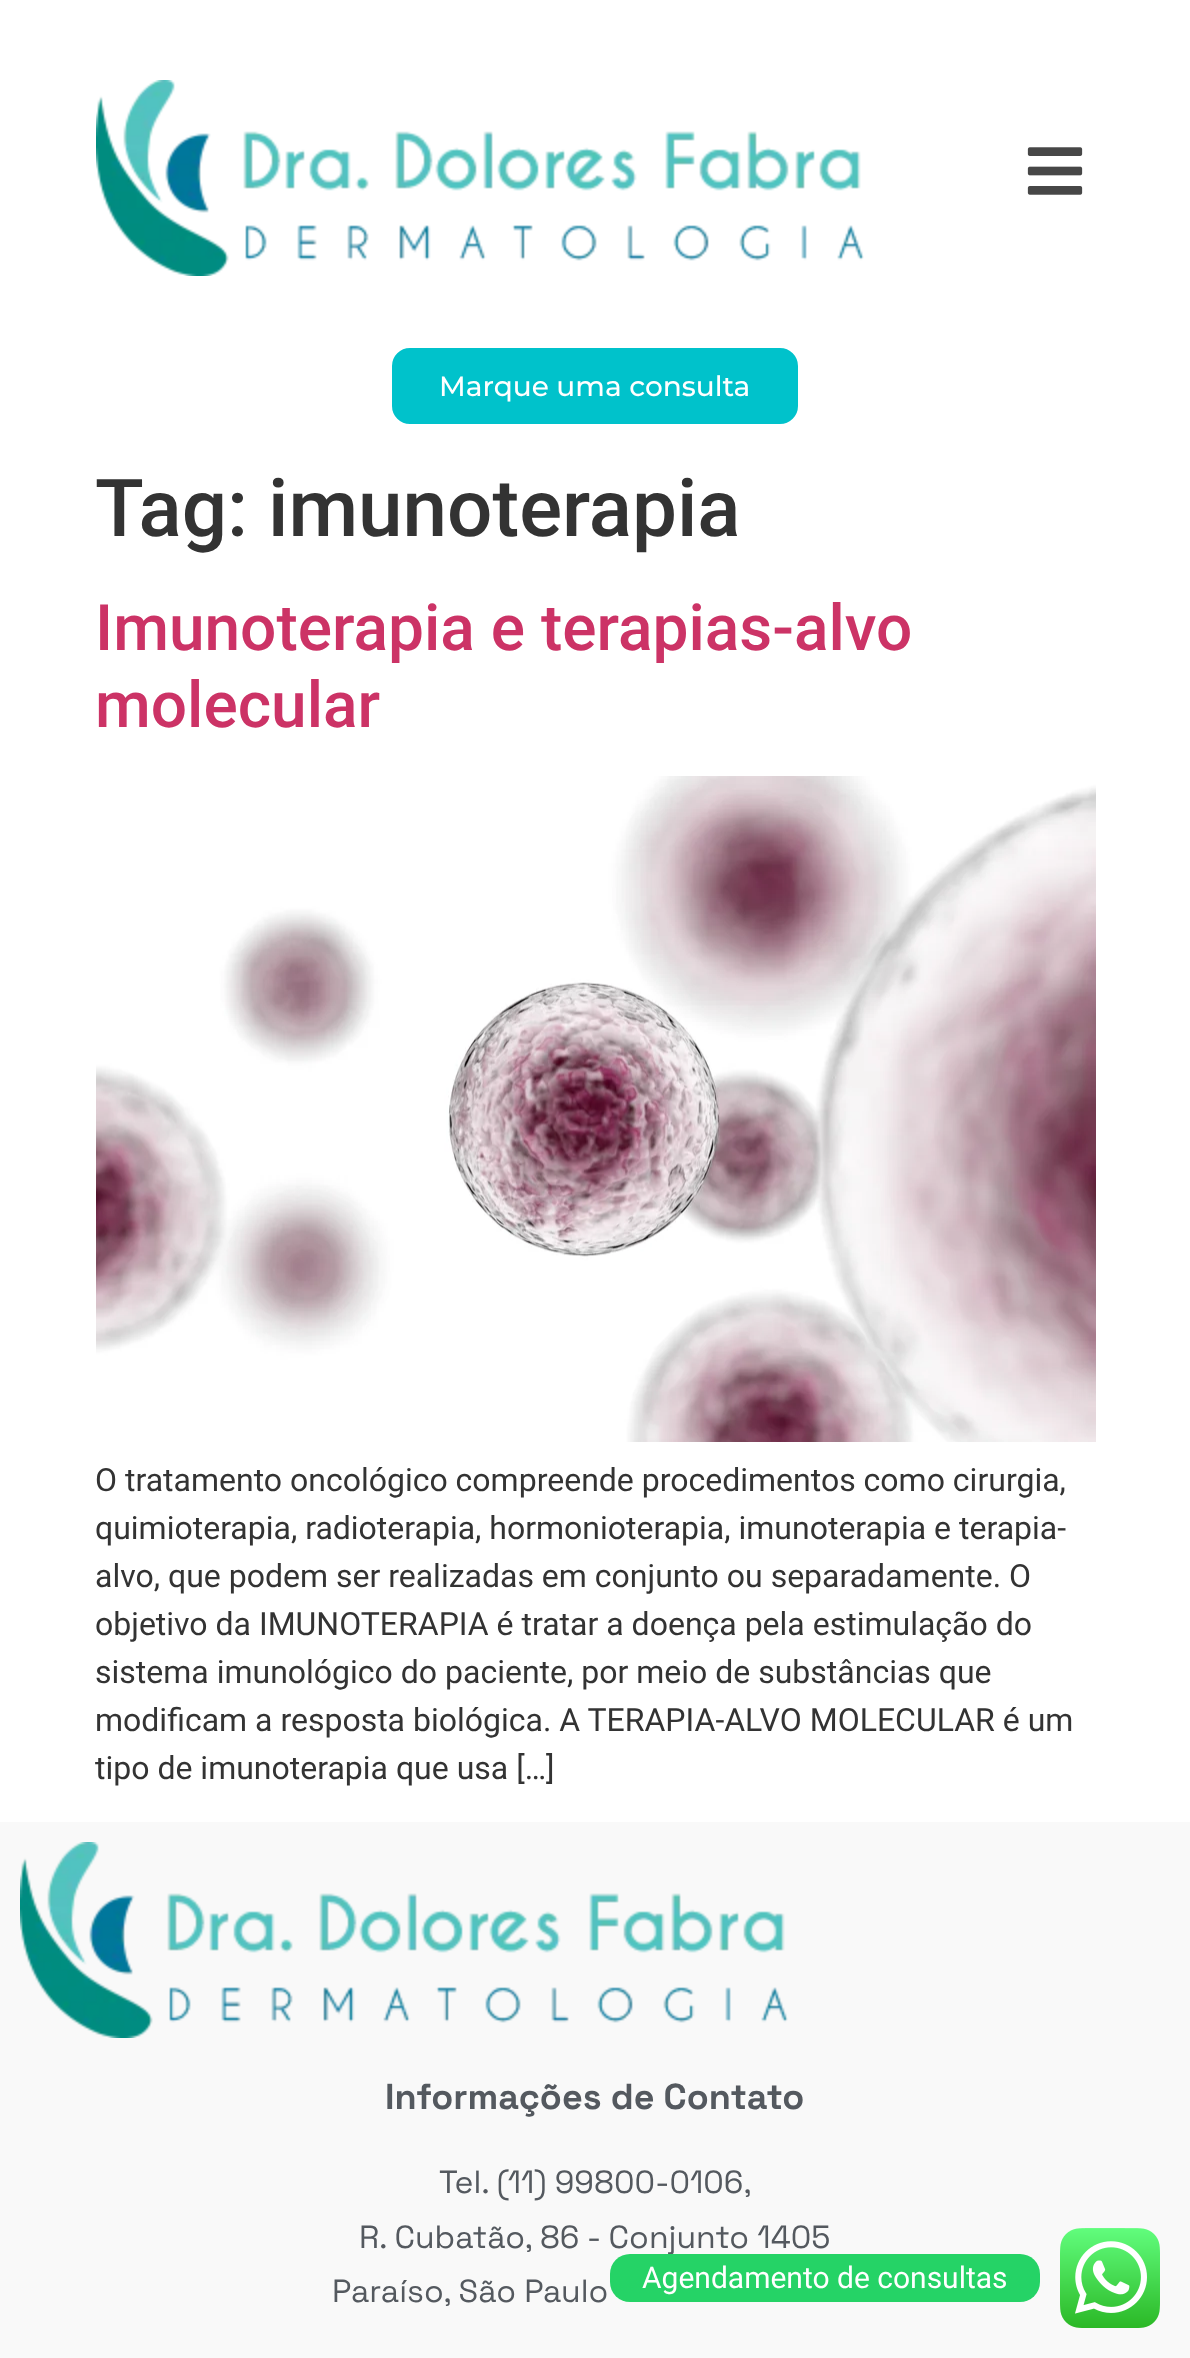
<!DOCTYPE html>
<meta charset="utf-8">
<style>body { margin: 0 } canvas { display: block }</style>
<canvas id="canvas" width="1190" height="2358"></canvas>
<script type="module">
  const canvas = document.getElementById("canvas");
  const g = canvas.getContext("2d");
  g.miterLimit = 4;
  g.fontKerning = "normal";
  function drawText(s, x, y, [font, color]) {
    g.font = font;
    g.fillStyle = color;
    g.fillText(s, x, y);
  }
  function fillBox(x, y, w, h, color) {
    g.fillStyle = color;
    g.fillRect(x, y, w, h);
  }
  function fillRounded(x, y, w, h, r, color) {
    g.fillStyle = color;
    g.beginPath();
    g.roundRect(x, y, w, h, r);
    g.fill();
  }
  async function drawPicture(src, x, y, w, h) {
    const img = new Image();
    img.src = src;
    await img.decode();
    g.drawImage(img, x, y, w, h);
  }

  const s1 = ["500 28px Montserrat", "#FFFFFF"];
  const s2 = ["500 80px Roboto", "#333333"];
  const s3 = ["500 64px Roboto", "#CC3366"];
  const s4 = ["32px Roboto", "#333333"];
  const s5 = ["bold 36px Space Grotesk", "#54595F"];
  const s6 = ["32px Space Grotesk", "#54595F"];
  const s7 = ["30px Roboto", "#FFFFFF"];

  fillBox(0, 0, 1190, 2358, "#FFFFFF");
  await drawPicture("pic1.png", 96, 80, 768, 196);
  await drawPicture("pic2.png", 1027, 147, 56, 48);
  g.fillStyle = "#00C2CB";
  g.beginPath();
  g.roundRect(391, 347, 408, 78, 19);
  g.fill();
  g.strokeStyle = "#FFFFFF";
  g.lineWidth = 2;
  g.stroke();
  drawText("Marque uma consulta", 439, 396, s1);
  drawText("Tag: imunoterapia", 95, 536, s2);
  drawText("Imunoterapia e terapias-alvo", 95, 650, s3);
  drawText("molecular", 95, 727, s3);
  await drawPicture("pic3.png", 96, 776, 1000, 666);
  drawText("O tratamento oncológico compreende procedimentos como cirurgia,", 95, 1491, s4);
  drawText("quimioterapia, radioterapia, hormonioterapia, imunoterapia e terapia-", 95, 1539, s4);
  drawText("alvo, que podem ser realizadas em conjunto ou separadamente. O", 95, 1587, s4);
  drawText("objetivo da IMUNOTERAPIA é tratar a doença pela estimulação do", 95, 1635, s4);
  drawText("sistema imunológico do paciente, por meio de substâncias que", 95, 1683, s4);
  drawText("modificam a resposta biológica. A TERAPIA-ALVO MOLECULAR é um", 95, 1731, s4);
  drawText("tipo de imunoterapia que usa […]", 95, 1779, s4);
  fillBox(0, 1822, 1190, 536, "#F9F9F9");
  await drawPicture("pic4.png", 20, 1842, 768, 196);
  drawText("Informações de Contato", 385, 2109, s5);
  drawText("Tel. (11) 99800-0106,", 439, 2193, s6);
  drawText("R. Cubatão, 86 - Conjunto 1405", 359, 2248, s6);
  drawText("Paraíso, São Paulo", 332, 2302, s6);
  fillRounded(610, 2254, 430, 48, 20, "#25D366");
  drawText("Agendamento de consultas", 642, 2288, s7);
  await drawPicture("pic5.png", 1060, 2228, 100, 100);
</script>
